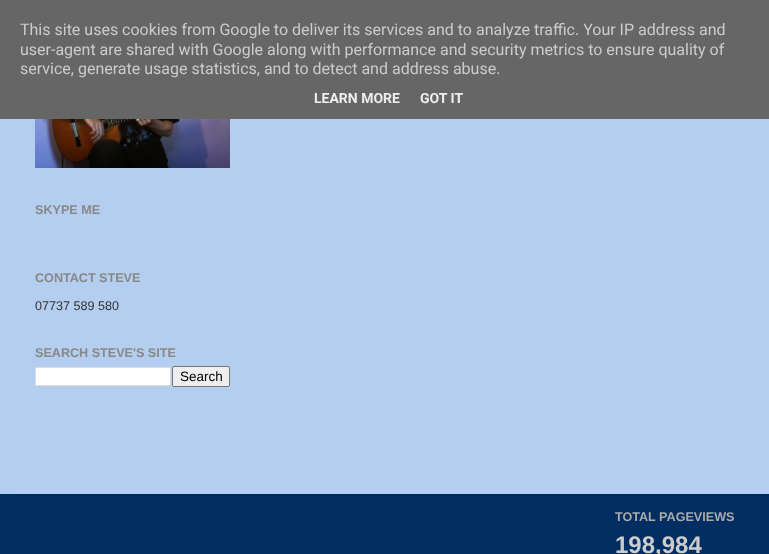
<!DOCTYPE html>
<meta charset="utf-8">
<style>body { margin: 0 } canvas { display: block }</style>
<canvas id="canvas" width="769" height="554"></canvas>
<script type="module">
  const canvas = document.getElementById("canvas");
  const g = canvas.getContext("2d");
  g.miterLimit = 4;
  g.fontKerning = "normal";
  function drawText(s, x, y, [font, color]) {
    g.font = font;
    g.fillStyle = color;
    g.fillText(s, x, y);
  }
  function fillBox(x, y, w, h, color) {
    g.fillStyle = color;
    g.fillRect(x, y, w, h);
  }
  async function drawPicture(src, x, y, w, h) {
    const img = new Image();
    img.src = src;
    await img.decode();
    g.drawImage(img, x, y, w, h);
  }

  const s1 = ["16px Roboto", "#CCCCCC"];
  const s2 = ["bold 14px Roboto", "#EEEEEE"];
  const s3 = ["bold 12.6px Liberation Sans", "#888888"];
  const s4 = ["12.6px Liberation Sans", "#333333"];
  const s5 = ["13.5px Liberation Sans", "#000000"];
  const s6 = ["bold 12.6px Liberation Sans", "#AAAAAA"];
  const s7 = ["bold 24px Liberation Sans", "#CCCCCC"];

  fillBox(0, 0, 769, 554, "#002E63");
  g.fillStyle = "rgba(0, 0, 0, 0.15)";
  g.filter = "blur(1.5px)";
  g.beginPath();
  g.roundRect(0, -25, 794, 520, 20);
  g.fill();
  g.filter = "none";
  fillBox(0, 0, 769, 119, "#666666");
  drawText("This site uses cookies from Google to deliver its services and to analyze traffic. Your IP address and", 20, 35, s1);
  drawText("user-agent are shared with Google along with performance and security metrics to ensure quality of", 20, 55, s1);
  drawText("service, generate usage statistics, and to detect and address abuse.", 20, 74, s1);
  drawText("LEARN MORE", 314, 103, s2);
  drawText("GOT IT", 420, 103, s2);
  fillBox(0, 119, 769, 375, "#B3CEEE");
  await drawPicture("pic1.png", 35, 119, 195, 49);
  drawText("SKYPE ME", 35, 214, s3);
  drawText("CONTACT STEVE", 35, 282, s3);
  drawText("07737 589 580", 35, 310, s4);
  drawText("SEARCH STEVE'S SITE", 35, 357, s3);
  g.fillStyle = "#FFFFFF";
  g.beginPath();
  g.rect(35.5, 367.5, 135, 18);
  g.fill();
  g.strokeStyle = "#DDDDDD";
  g.stroke();
  g.fillStyle = "#EFEFEF";
  g.beginPath();
  g.roundRect(172.5, 366.5, 57, 20, 1.5);
  g.fill();
  g.strokeStyle = "#767676";
  g.stroke();
  drawText("Search", 180, 381, s5);
  drawText("TOTAL PAGEVIEWS", 615, 521, s6);
  drawText("198,984", 615, 553, s7);
</script>
